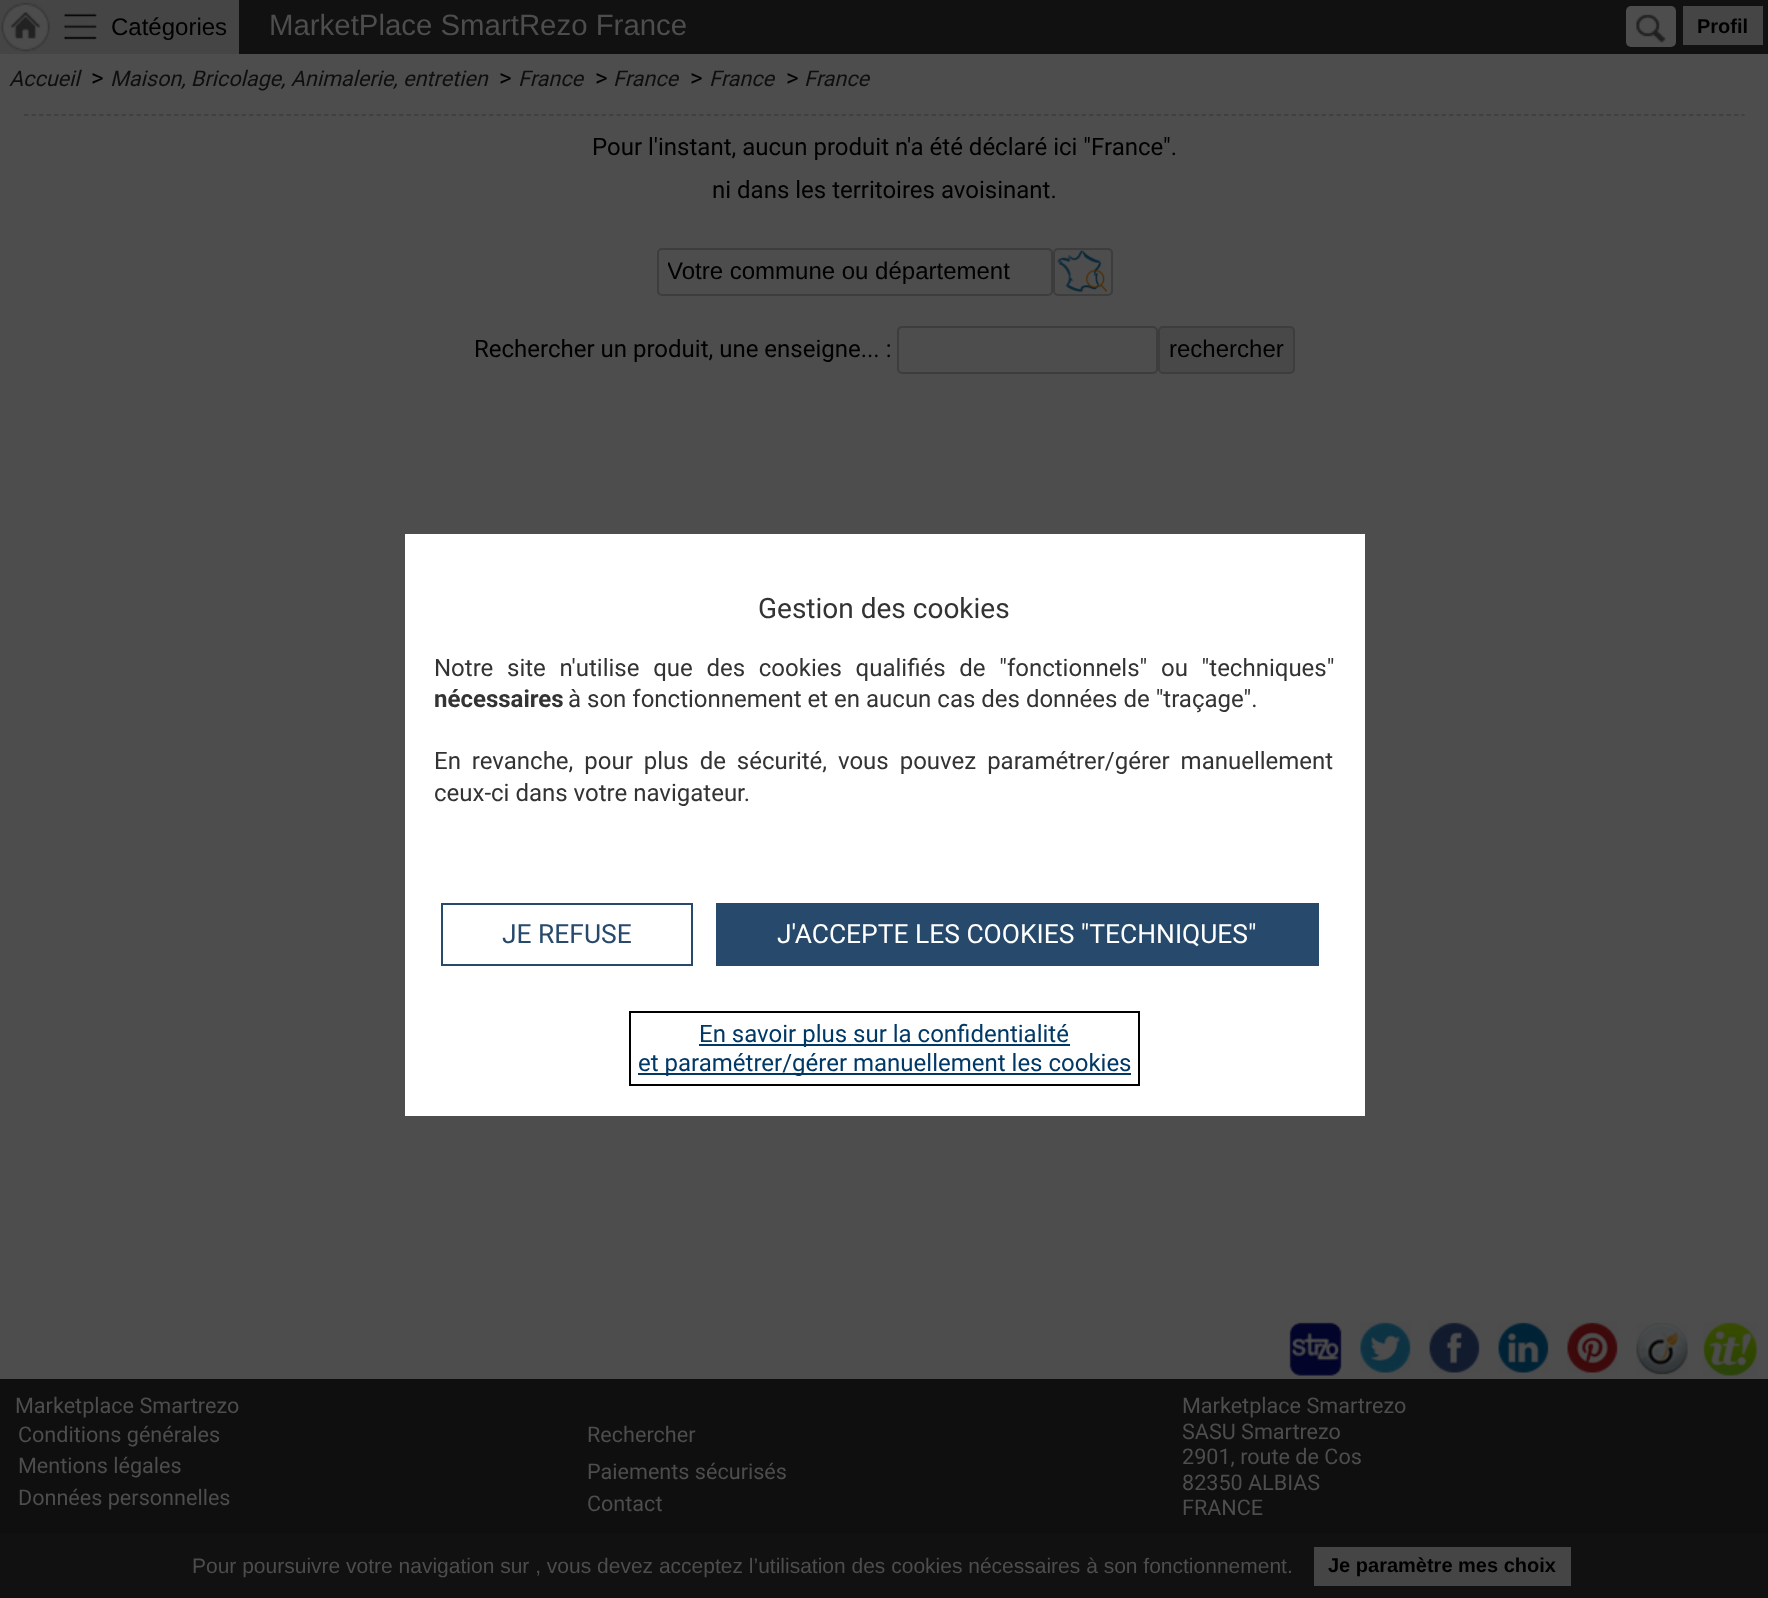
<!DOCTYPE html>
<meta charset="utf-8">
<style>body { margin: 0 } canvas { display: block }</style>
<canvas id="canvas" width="1768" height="1598"></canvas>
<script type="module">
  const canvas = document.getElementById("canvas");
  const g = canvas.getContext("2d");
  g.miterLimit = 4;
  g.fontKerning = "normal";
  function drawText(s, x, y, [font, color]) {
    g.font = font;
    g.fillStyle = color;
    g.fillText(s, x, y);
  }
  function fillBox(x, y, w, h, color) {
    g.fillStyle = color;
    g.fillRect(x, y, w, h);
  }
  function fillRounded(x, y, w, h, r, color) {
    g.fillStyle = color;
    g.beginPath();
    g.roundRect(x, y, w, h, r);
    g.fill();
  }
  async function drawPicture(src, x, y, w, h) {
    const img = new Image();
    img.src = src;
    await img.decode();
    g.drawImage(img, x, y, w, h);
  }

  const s1 = ["24px Liberation Sans", "#000000"];
  const s2 = ["29.4px Liberation Sans", "#4D4D4D"];
  const s3 = ["bold 20px Liberation Sans", "#000000"];
  const s4 = ["italic 21.6px Roboto", "#0F0F0F"];
  const s5 = ["24px Roboto", "#000000"];
  const s6 = ["28px Roboto", "#333333"];
  const s7 = ["24px Roboto", "#333333"];
  const s8 = ["bold 24px Roboto", "#333333"];
  const s9 = ["26.4px Roboto", "#274A6C"];
  const s10 = ["26.4px Roboto", "#FFFFFF"];
  const s11 = ["24px Roboto", "#003866"];
  const s12 = ["21.6px Roboto", "#4D4D4D"];
  const s13 = ["21px Liberation Sans", "#4D4D4D"];

  fillBox(0, 0, 1768, 1598, "#4D4D4D");
  fillBox(239, 0, 1529, 54, "#111112");
  fillBox(0, 0, 239, 54, "#454545");
  await drawPicture("pic1.png", 1, 2, 49, 50);
  await drawPicture("pic2.png", 63, 13, 34, 27);
  drawText("Catégories", 111, 35, s1);
  drawText("MarketPlace SmartRezo France", 269, 35, s2);
  fillRounded(1626, 6, 50, 41, 5, "#4D4D4D");
  await drawPicture("pic3.png", 1636, 14, 30, 29);
  fillBox(1683, 6, 80, 39, "#454545");
  drawText("Profil", 1697, 33, s3);
  drawText("Accueil", 9, 86, s4);
  drawText(">", 91, 86, s5);
  drawText("Maison, Bricolage, Animalerie, entretien", 110, 86, s4);
  drawText(">", 499, 86, s5);
  drawText("France", 518, 86, s4);
  drawText(">", 595, 86, s5);
  drawText("France", 613, 86, s4);
  drawText(">", 690, 86, s5);
  drawText("France", 709, 86, s4);
  drawText(">", 786, 86, s5);
  drawText("France", 804, 86, s4);
  g.beginPath();
  g.moveTo(24, 115);
  g.lineTo(1744.5, 115);
  g.strokeStyle = "#3D3D3D";
  g.lineWidth = 1.5;
  g.setLineDash([4.5, 3]);
  g.stroke();
  drawText("Pour l'instant, aucun produit n'a été déclaré ici \"France\".", 592, 155, s5);
  drawText("ni dans les territoires avoisinant.", 712, 198, s5);
  g.beginPath();
  g.roundRect(658, 249, 394, 46, 4);
  g.lineWidth = 2;
  g.setLineDash([]);
  g.stroke();
  g.save();
  g.beginPath();
  g.rect(668, 249, 375, 45);
  g.clip();
  drawText("Votre commune ou département", 667, 279, s1);
  g.restore();
  await drawPicture("pic4.png", 1057, 250, 50, 43);
  g.beginPath();
  g.roundRect(1054, 249, 58, 46, 4);
  g.stroke();
  drawText("Rechercher un produit, une enseigne... :", 474, 357, s5);
  g.beginPath();
  g.roundRect(898, 327, 259, 46, 4);
  g.stroke();
  g.fillStyle = "#484848";
  g.beginPath();
  g.roundRect(1159, 327, 135, 46, 4);
  g.fill();
  g.stroke();
  drawText("rechercher", 1169, 357, s1);
  fillBox(405, 534, 960, 582, "#FFFFFF");
  drawText("Gestion des cookies", 758, 618, s6);
  g.wordSpacing = "7.75px";
  drawText("Notre site n'utilise que des cookies qualifiés de \"fonctionnels\" ou \"techniques\"", 434, 676, s7);
  g.wordSpacing = "0px";
  drawText("nécessaires", 434, 707, s8);
  drawText("à son fonctionnement et en aucun cas des données de \"traçage\".", 568, 707, s7);
  g.wordSpacing = "5px";
  drawText("En revanche, pour plus de sécurité, vous pouvez paramétrer/gérer manuellement", 434, 769, s7);
  g.wordSpacing = "0px";
  drawText("ceux-ci dans votre navigateur.", 434, 801, s7);
  g.strokeStyle = "#274A6C";
  g.strokeRect(442, 904, 250, 61);
  drawText("JE REFUSE", 502, 943, s9);
  fillBox(716, 903, 603, 63, "#274A6C");
  drawText("J'ACCEPTE LES COOKIES \"TECHNIQUES\"", 777, 943, s10);
  g.strokeStyle = "#000000";
  g.strokeRect(630, 1012, 509, 73);
  fillBox(699, 1044, 371, 2, "#003866");
  drawText("En savoir plus sur la confidentialité", 699, 1042, s11);
  fillBox(638, 1073, 493, 2, "#003866");
  drawText("et paramétrer/gérer manuellement les cookies", 638, 1071, s11);
  fillBox(0, 1379, 1768, 154, "#0F0F0F");
  await drawPicture("pic5.png", 1289, 1322, 53, 54);
  await drawPicture("pic6.png", 1360, 1322, 51, 51);
  await drawPicture("pic7.png", 1429, 1322, 51, 51);
  await drawPicture("pic8.png", 1498, 1322, 51, 51);
  await drawPicture("pic9.png", 1567, 1322, 51, 51);
  await drawPicture("pic10.png", 1636, 1323, 52, 52);
  await drawPicture("pic11.png", 1703, 1322, 54, 54);
  drawText("Marketplace Smartrezo", 15, 1413, s12);
  drawText("Conditions générales", 18, 1442, s12);
  drawText("Mentions légales", 18, 1473, s12);
  drawText("Données personnelles", 18, 1505, s12);
  drawText("Rechercher", 587, 1442, s12);
  drawText("Paiements sécurisés", 587, 1479, s12);
  drawText("Contact", 587, 1511, s12);
  drawText("Marketplace Smartrezo", 1182, 1413, s12);
  drawText("SASU Smartrezo", 1182, 1439, s12);
  drawText("2901, route de Cos", 1182, 1464, s12);
  drawText("82350 ALBIAS", 1182, 1490, s12);
  drawText("FRANCE", 1182, 1515, s12);
  fillBox(0, 1533, 1768, 65, "#111112");
  drawText("Pour poursuivre votre navigation sur , vous devez acceptez l’utilisation des cookies nécessaires à son fonctionnement.", 192, 1573, s13);
  fillBox(1314, 1547, 257, 39, "#454545");
  drawText("Je paramètre mes choix", 1328, 1572, s3);
</script>
